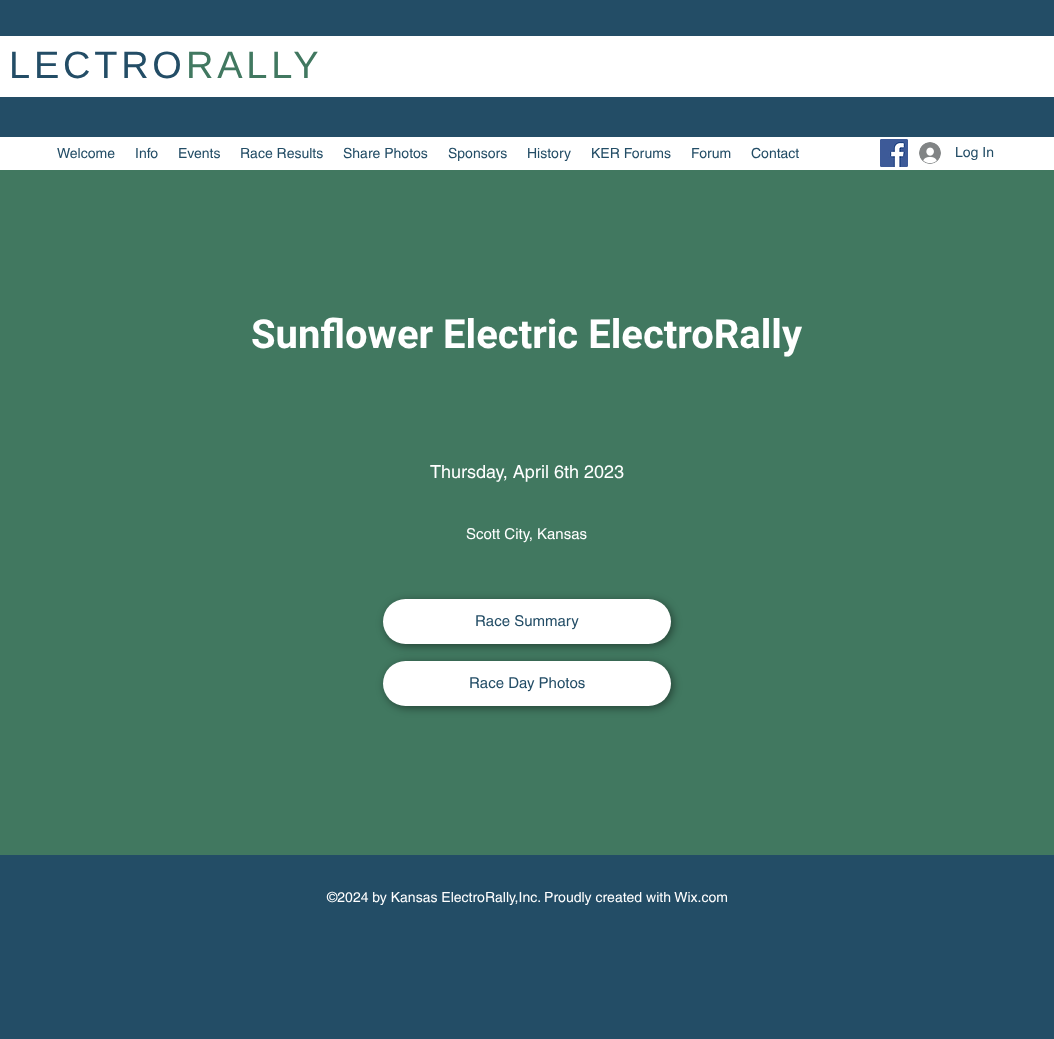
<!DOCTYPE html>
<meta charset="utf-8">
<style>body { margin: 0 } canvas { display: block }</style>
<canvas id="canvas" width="1054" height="1039"></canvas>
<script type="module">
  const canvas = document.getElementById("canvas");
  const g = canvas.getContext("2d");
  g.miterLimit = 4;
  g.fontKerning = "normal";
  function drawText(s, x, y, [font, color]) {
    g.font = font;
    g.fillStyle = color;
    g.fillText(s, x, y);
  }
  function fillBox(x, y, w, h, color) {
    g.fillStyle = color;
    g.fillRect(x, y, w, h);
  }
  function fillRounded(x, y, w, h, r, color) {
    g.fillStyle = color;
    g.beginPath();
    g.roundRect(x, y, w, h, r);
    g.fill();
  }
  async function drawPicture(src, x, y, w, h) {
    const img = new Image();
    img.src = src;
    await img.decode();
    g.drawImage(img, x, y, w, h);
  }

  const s1 = ["38px Liberation Sans", "#234D66"];
  const s2 = ["38px Liberation Sans", "#417860"];
  const s3 = ["14px helvetica", "#234D66"];
  const s4 = ["bold 40px Roboto", "#FFFFFF"];
  const s5 = ["18px helvetica", "#FFFFFF"];
  const s6 = ["15px helvetica", "#FFFFFF"];
  const s7 = ["15px helvetica", "#234D66"];
  const s8 = ["14px helvetica", "#FFFFFF"];

  fillBox(0, 0, 1054, 1039, "#234D66");
  fillBox(0, 36, 1054, 61, "#FFFFFF");
  g.letterSpacing = "3.75px";
  drawText("LECTRO", 9, 78, s1);
  drawText("RALLY", 186, 78, s2);
  fillBox(0, 137, 1054, 33, "#FFFFFF");
  g.letterSpacing = "0px";
  drawText("Welcome", 57, 158, s3);
  drawText("Info", 135, 158, s3);
  drawText("Events", 178, 158, s3);
  drawText("Race Results", 240, 158, s3);
  drawText("Share Photos", 343, 158, s3);
  drawText("Sponsors", 448, 158, s3);
  drawText("History", 527, 158, s3);
  drawText("KER Forums", 591, 158, s3);
  drawText("Forum", 691, 158, s3);
  drawText("Contact", 751, 158, s3);
  await drawPicture("pic1.png", 880, 139, 28, 28);
  await drawPicture("pic2.png", 919, 142, 22, 22);
  drawText("Log In", 955, 157, s3);
  fillBox(0, 170, 1054, 685, "#417860");
  drawText("Sunflower Electric ElectroRally", 251, 348, s4);
  drawText("Thursday, April 6th 2023", 430, 478, s5);
  drawText("Scott City, Kansas", 466, 539, s6);
  g.fillStyle = "rgba(0, 0, 0, 0.45)";
  g.filter = "blur(4px)";
  g.beginPath();
  g.roundRect(385, 601, 288, 45, 22.5);
  g.fill();
  g.filter = "none";
  fillRounded(383, 599, 288, 45, 22.5, "#FFFFFF");
  drawText("Race Summary", 475, 626, s7);
  g.fillStyle = "rgba(0, 0, 0, 0.45)";
  g.filter = "blur(4px)";
  g.beginPath();
  g.roundRect(385, 663, 288, 45, 22.5);
  g.fill();
  g.filter = "none";
  fillRounded(383, 661, 288, 45, 22.5, "#FFFFFF");
  drawText("Race Day Photos", 469, 688, s7);
  drawText("©2024 by Kansas ElectroRally,Inc. Proudly created with Wix.com", 327, 902, s8);
</script>
